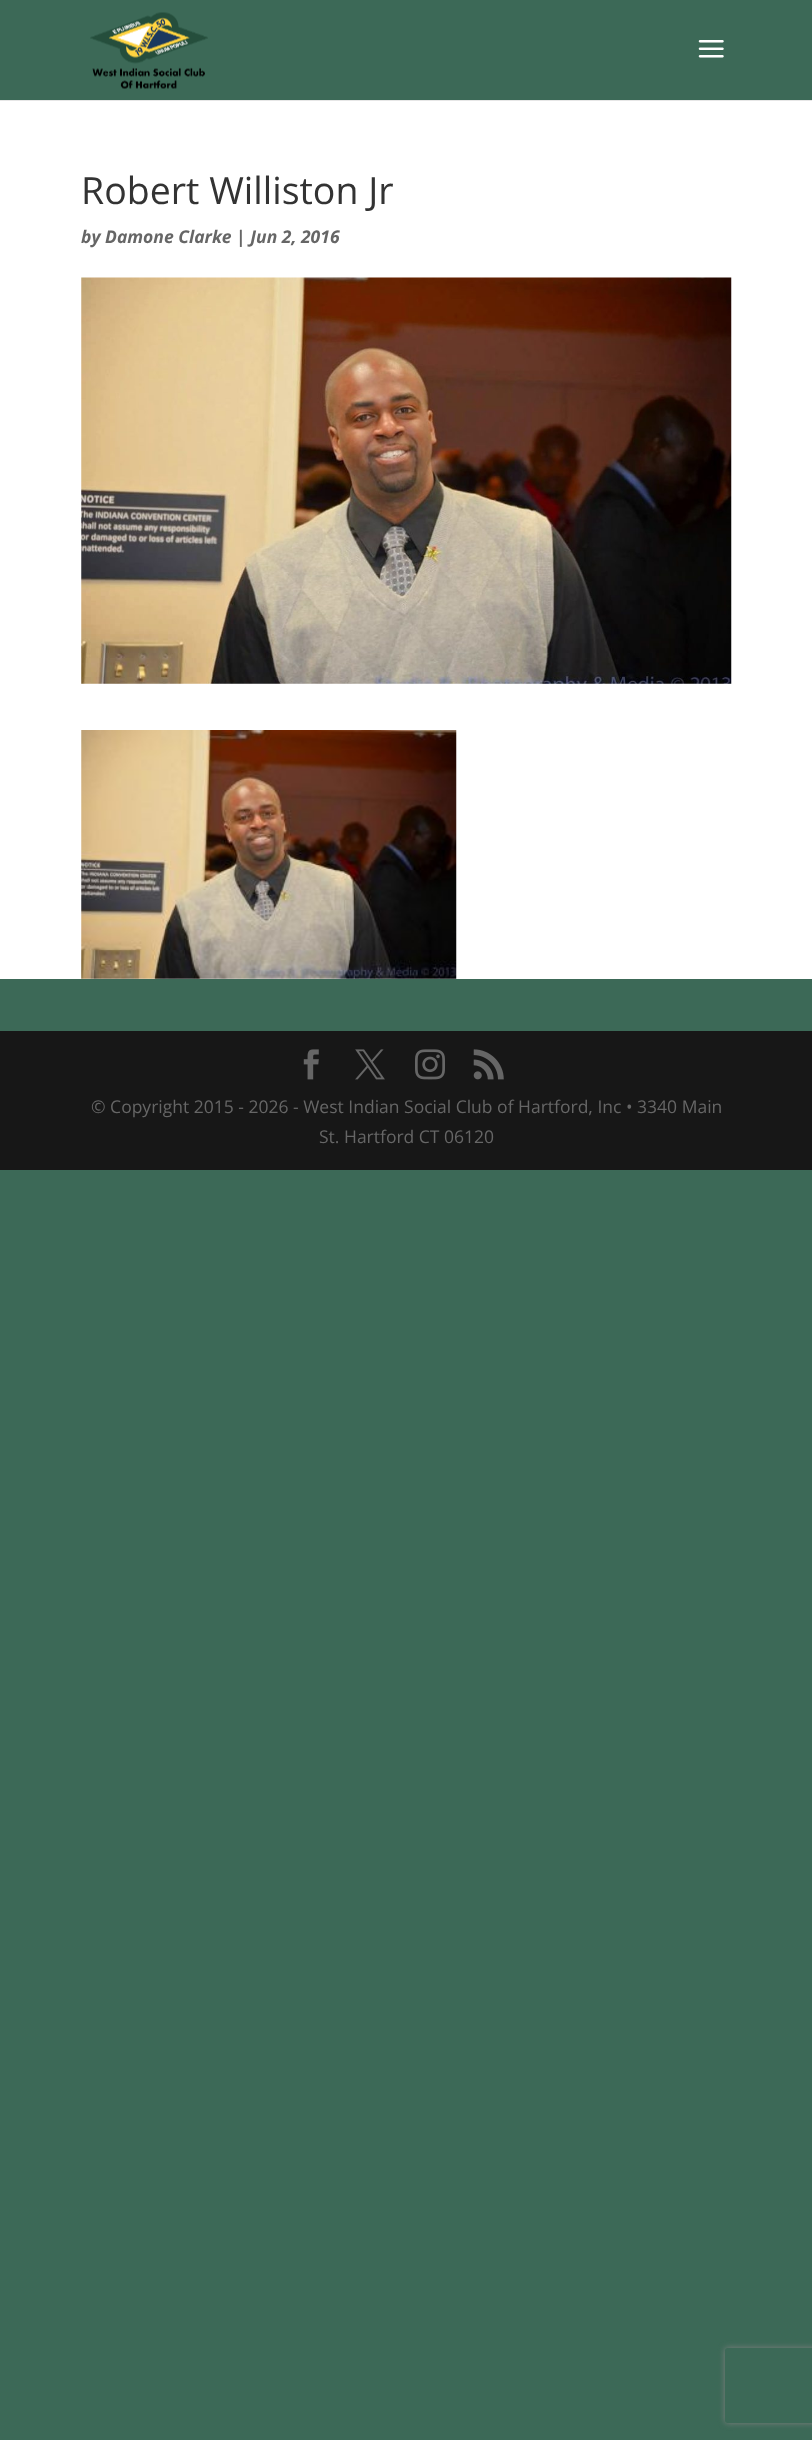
<!DOCTYPE html>
<meta charset="utf-8">
<style>body { margin: 0 } canvas { display: block }</style>
<canvas id="canvas" width="812" height="2440"></canvas>
<script type="module">
  const canvas = document.getElementById("canvas");
  const g = canvas.getContext("2d");
  g.miterLimit = 4;
  g.fontKerning = "normal";
  function drawText(s, x, y, [font, color]) {
    g.font = font;
    g.fillStyle = color;
    g.fillText(s, x, y);
  }
  function fillBox(x, y, w, h, color) {
    g.fillStyle = color;
    g.fillRect(x, y, w, h);
  }
  async function drawPicture(src, x, y, w, h) {
    const img = new Image();
    img.src = src;
    await img.decode();
    g.drawImage(img, x, y, w, h);
  }

  const s1 = ["37.5px Open Sans", "#333333"];
  const s2 = ["italic bold 17.5px Open Sans", "#666666"];
  const s3 = ["17.5px Open Sans", "#666666"];

  fillBox(0, 0, 812, 2440, "#3C6957");
  g.fillStyle = "#E6E6E6";
  g.beginPath();
  g.moveTo(0, 100);
  g.lineTo(0, 101);
  g.lineTo(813, 101);
  g.lineTo(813, 1);
  g.lineTo(812, 1);
  g.lineTo(812, 100);
  g.closePath();
  g.fill();
  await drawPicture("pic1.png", 90, 12, 118, 77);
  await drawPicture("pic2.png", 698, 40, 26, 18);
  fillBox(0, 101, 812, 878, "#FFFFFF");
  drawText("Robert Williston Jr", 81, 204, s1);
  drawText("by Damone Clarke | Jun 2, 2016", 81, 243, s2);
  await drawPicture("pic3.png", 81, 277, 651, 407);
  await drawPicture("pic4.png", 81, 730, 376, 249);
  fillBox(0, 1031, 812, 139, "#171717");
  await drawPicture("pic5.png", 303, 1049, 16, 31);
  await drawPicture("pic6.png", 355, 1049, 30, 31);
  await drawPicture("pic7.png", 415, 1049, 30, 31);
  await drawPicture("pic8.png", 473, 1049, 31, 31);
  drawText("© Copyright 2015 - 2026 - West Indian Social Club of Hartford, Inc • 3340 Main", 91, 1113, s3);
  drawText("St. Hartford CT 06120", 319, 1143, s3);
  g.save();
  g.beginPath();
  g.moveTo(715, 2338);
  g.lineTo(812, 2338);
  g.lineTo(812, 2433);
  g.lineTo(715, 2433);
  g.closePath();
  g.moveTo(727.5, 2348);
  g.lineTo(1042.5, 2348);
  g.bezierCurveTo(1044, 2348, 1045, 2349, 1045, 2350.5);
  g.lineTo(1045, 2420.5);
  g.bezierCurveTo(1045, 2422, 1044, 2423, 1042.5, 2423);
  g.lineTo(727.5, 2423);
  g.bezierCurveTo(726, 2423, 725, 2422, 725, 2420.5);
  g.lineTo(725, 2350.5);
  g.bezierCurveTo(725, 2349, 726, 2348, 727.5, 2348);
  g.closePath();
  g.clip("evenodd");
  g.fillStyle = "#808080";
  g.filter = "blur(3px)";
  g.beginPath();
  g.roundRect(725, 2348, 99, 75, 2.5);
  g.fill();
  g.filter = "none";
  g.restore();
</script>
